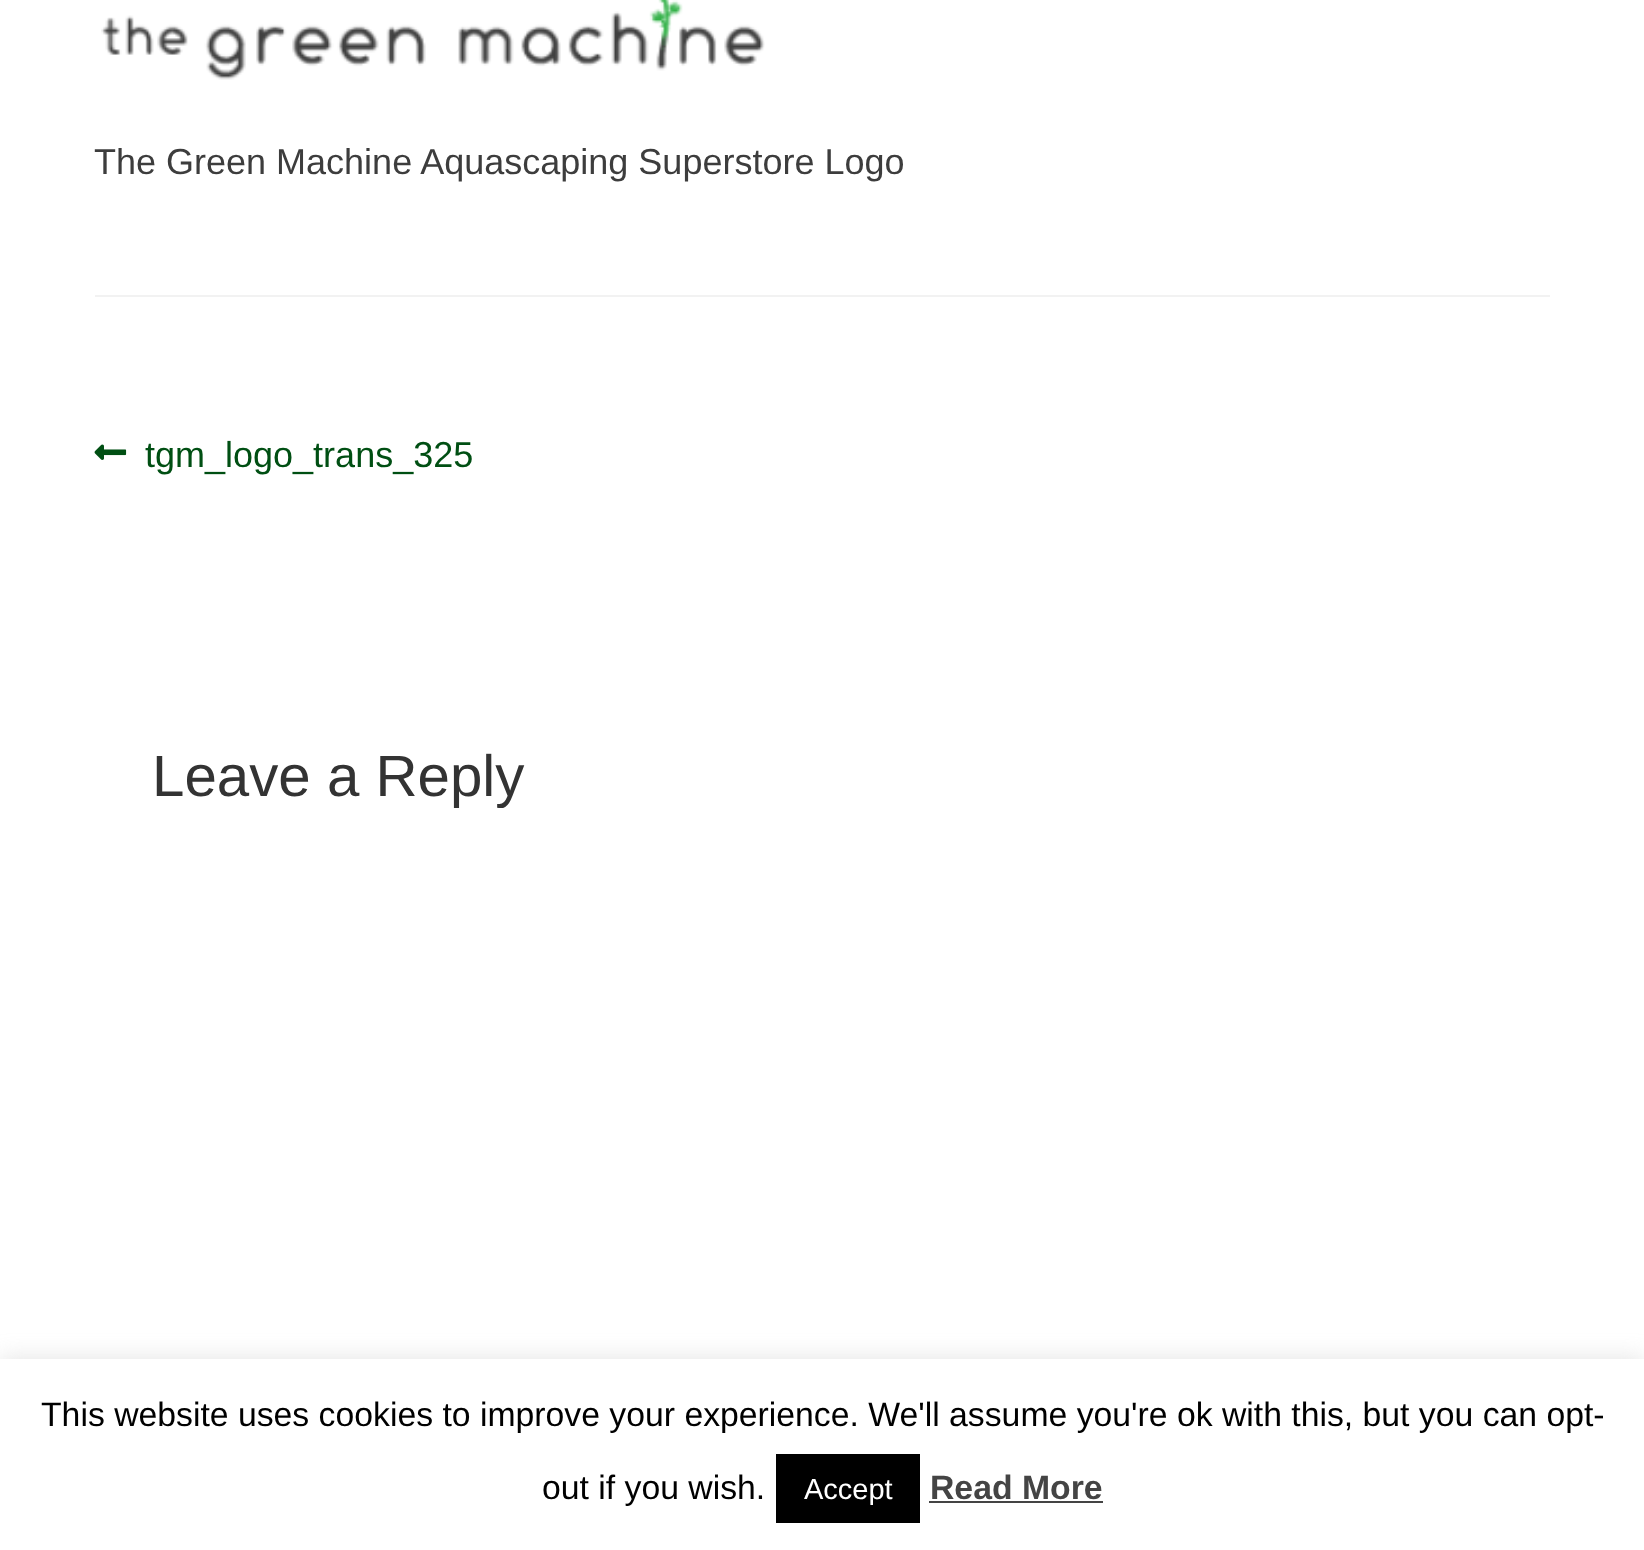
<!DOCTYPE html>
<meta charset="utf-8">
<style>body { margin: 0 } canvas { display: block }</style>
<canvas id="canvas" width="1644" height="1550"></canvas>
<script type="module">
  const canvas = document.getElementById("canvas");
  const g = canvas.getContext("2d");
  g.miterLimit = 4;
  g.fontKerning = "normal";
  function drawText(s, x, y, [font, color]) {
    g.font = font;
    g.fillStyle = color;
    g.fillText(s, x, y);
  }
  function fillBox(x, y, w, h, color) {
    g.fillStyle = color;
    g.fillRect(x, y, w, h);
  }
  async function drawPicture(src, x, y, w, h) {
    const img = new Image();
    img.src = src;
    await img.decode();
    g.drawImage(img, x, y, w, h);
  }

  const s1 = ["36px Liberation Sans", "#3D3D3D"];
  const s2 = ["36px Liberation Sans", "#004F13"];
  const s3 = ["58.25px Liberation Sans", "#333333"];
  const s4 = ["33.75px Liberation Sans", "#000000"];
  const s5 = ["29px Liberation Sans", "#FFFFFF"];
  const s6 = ["bold 33.75px Liberation Sans", "#444444"];

  fillBox(0, 0, 1644, 1550, "#FFFFFF");
  await drawPicture("pic1.png", 101, 0, 664, 80);
  drawText("The Green Machine Aquascaping Superstore Logo", 94, 174, s1);
  fillBox(95, 295, 1455, 2, "#F2F2F2");
  await drawPicture("pic2.png", 94, 444, 33, 16);
  drawText("tgm_logo_trans_325", 145, 467, s2);
  drawText("Leave a Reply", 152, 796, s3);
  g.fillStyle = "rgba(172, 171, 171, 0.3)";
  g.filter = "blur(11px)";
  g.beginPath();
  g.rect(0, 1357, 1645, 191);
  g.fill();
  g.filter = "none";
  fillBox(0, 1359, 1644, 191, "#FFFFFF");
  drawText("This website uses cookies to improve your experience. We'll assume you're ok with this, but you can opt-", 41, 1426, s4);
  drawText("out if you wish.", 542, 1499, s4);
  fillBox(776, 1454, 144, 69, "#000000");
  drawText("Accept", 804, 1499, s5);
  drawText("Read More", 930, 1499, s6);
  fillBox(929, 1501, 174, 2, "#444444");
</script>
